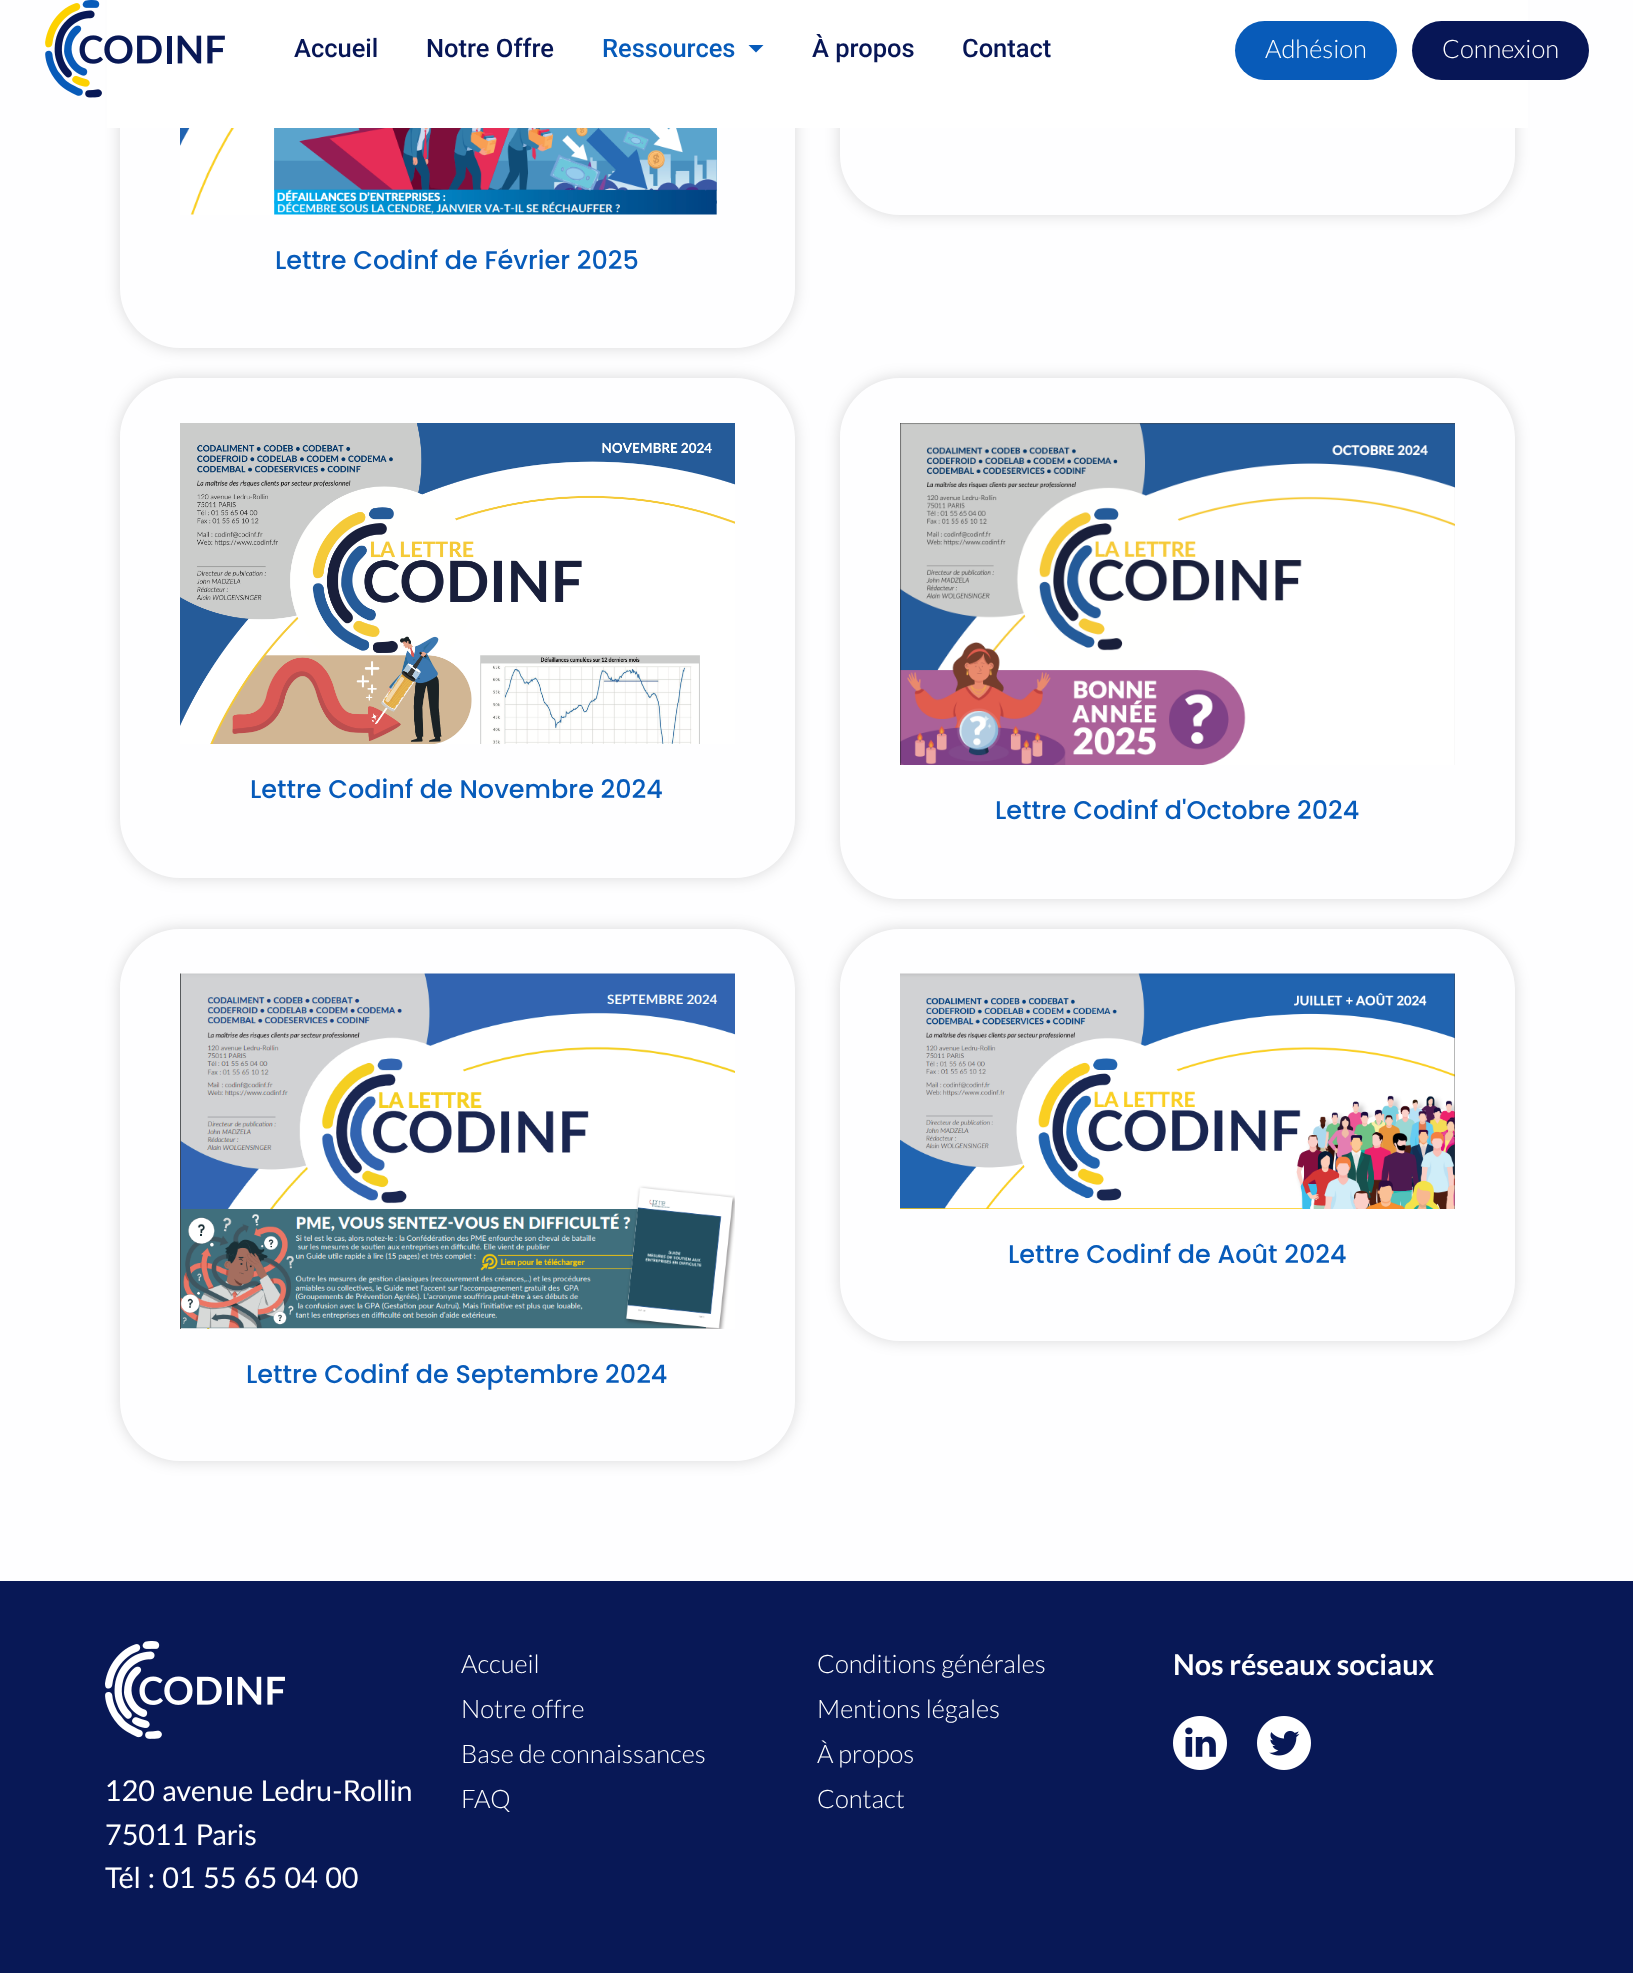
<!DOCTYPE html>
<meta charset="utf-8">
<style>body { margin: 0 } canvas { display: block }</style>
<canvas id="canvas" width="1633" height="1973"></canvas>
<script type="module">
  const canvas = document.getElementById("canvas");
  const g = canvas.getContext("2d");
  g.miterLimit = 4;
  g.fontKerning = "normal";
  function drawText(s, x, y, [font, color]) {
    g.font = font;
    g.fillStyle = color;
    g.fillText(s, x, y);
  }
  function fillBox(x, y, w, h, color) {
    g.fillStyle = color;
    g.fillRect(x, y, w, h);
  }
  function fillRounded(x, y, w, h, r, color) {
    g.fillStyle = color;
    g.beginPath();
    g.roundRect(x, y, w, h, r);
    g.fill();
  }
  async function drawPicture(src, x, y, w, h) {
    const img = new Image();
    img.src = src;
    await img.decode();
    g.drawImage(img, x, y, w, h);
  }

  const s1 = ["500 25.5px Roboto", "#071656"];
  const s2 = ["500 25.5px Roboto", "#075BBA"];
  const s3 = ["300 25.5px Lato", "#FFFFFF"];
  const s4 = ["500 25.5px Poppins", "#075BBA"];
  const s5 = ["bold 28.75px Lato", "#FFFFFF"];
  const s6 = ["28.75px Lato", "#FFFFFF"];

  fillBox(0, 0, 1633, 1973, "#FEFEFF");
  g.save();
  g.beginPath();
  g.moveTo(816, 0);
  g.lineTo(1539, 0);
  g.lineTo(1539, 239);
  g.lineTo(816, 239);
  g.closePath();
  g.moveTo(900, -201);
  g.lineTo(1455, -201);
  g.bezierCurveTo(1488, -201, 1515, -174, 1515, -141);
  g.lineTo(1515, 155);
  g.bezierCurveTo(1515, 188, 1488, 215, 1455, 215);
  g.lineTo(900, 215);
  g.bezierCurveTo(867, 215, 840, 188, 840, 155);
  g.lineTo(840, -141);
  g.bezierCurveTo(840, -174, 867, -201, 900, -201);
  g.closePath();
  g.clip("evenodd");
  g.fillStyle = "rgba(0, 0, 0, 0.15)";
  g.filter = "blur(7.5px)";
  g.beginPath();
  g.roundRect(840, -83, 675, 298, 60);
  g.fill();
  g.filter = "none";
  g.restore();
  g.save();
  g.beginPath();
  g.moveTo(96, 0);
  g.lineTo(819, 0);
  g.lineTo(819, 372);
  g.lineTo(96, 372);
  g.closePath();
  g.moveTo(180, -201);
  g.lineTo(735, -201);
  g.bezierCurveTo(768, -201, 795, -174, 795, -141);
  g.lineTo(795, 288);
  g.bezierCurveTo(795, 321, 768, 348, 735, 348);
  g.lineTo(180, 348);
  g.bezierCurveTo(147, 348, 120, 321, 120, 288);
  g.lineTo(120, -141);
  g.bezierCurveTo(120, -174, 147, -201, 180, -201);
  g.closePath();
  g.clip("evenodd");
  g.fillStyle = "rgba(0, 0, 0, 0.15)";
  g.filter = "blur(7.5px)";
  g.beginPath();
  g.roundRect(120, -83, 675, 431, 60);
  g.fill();
  g.filter = "none";
  g.restore();
  fillBox(107, 0, 1421, 128, "#FFFFFF");
  await drawPicture("pic1.png", 45, 0, 180, 98);
  drawText("Accueil", 294, 57, s1);
  drawText("Notre Offre", 426, 57, s1);
  drawText("Ressources", 602, 57, s2);
  g.beginPath();
  g.moveTo(748.5, 45);
  g.lineTo(763.5, 45);
  g.lineTo(756, 52.5);
  g.closePath();
  g.fill();
  drawText("À propos", 812, 57, s1);
  drawText("Contact", 962, 57, s1);
  fillRounded(1235, 21, 162, 59, 29.5, "#085BB9");
  drawText("Adhésion", 1265, 58, s3);
  fillRounded(1412, 21, 177, 59, 29.5, "#071656");
  drawText("Connexion", 1442, 58, s3);
  await drawPicture("pic2.png", 180, 128, 537, 87);
  drawText("Lettre Codinf de Février 2025", 275, 269, s4);
  g.save();
  g.beginPath();
  g.moveTo(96, 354);
  g.lineTo(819, 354);
  g.lineTo(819, 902);
  g.lineTo(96, 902);
  g.closePath();
  g.moveTo(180, 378);
  g.lineTo(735, 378);
  g.bezierCurveTo(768, 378, 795, 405, 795, 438);
  g.lineTo(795, 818);
  g.bezierCurveTo(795, 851, 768, 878, 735, 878);
  g.lineTo(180, 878);
  g.bezierCurveTo(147, 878, 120, 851, 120, 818);
  g.lineTo(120, 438);
  g.bezierCurveTo(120, 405, 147, 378, 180, 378);
  g.closePath();
  g.clip("evenodd");
  g.fillStyle = "rgba(0, 0, 0, 0.15)";
  g.filter = "blur(7.5px)";
  g.beginPath();
  g.roundRect(120, 378, 675, 500, 60);
  g.fill();
  g.filter = "none";
  g.restore();
  await drawPicture("pic3.png", 180, 423, 555, 321);
  drawText("Lettre Codinf de Novembre 2024", 250, 798, s4);
  g.save();
  g.beginPath();
  g.moveTo(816, 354);
  g.lineTo(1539, 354);
  g.lineTo(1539, 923);
  g.lineTo(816, 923);
  g.closePath();
  g.moveTo(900, 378);
  g.lineTo(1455, 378);
  g.bezierCurveTo(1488, 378, 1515, 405, 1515, 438);
  g.lineTo(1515, 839);
  g.bezierCurveTo(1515, 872, 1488, 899, 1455, 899);
  g.lineTo(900, 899);
  g.bezierCurveTo(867, 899, 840, 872, 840, 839);
  g.lineTo(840, 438);
  g.bezierCurveTo(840, 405, 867, 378, 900, 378);
  g.closePath();
  g.clip("evenodd");
  g.fillStyle = "rgba(0, 0, 0, 0.15)";
  g.filter = "blur(7.5px)";
  g.beginPath();
  g.roundRect(840, 378, 675, 521, 60);
  g.fill();
  g.filter = "none";
  g.restore();
  await drawPicture("pic4.png", 900, 423, 555, 342);
  drawText("Lettre Codinf d'Octobre 2024", 995, 819, s4);
  g.save();
  g.beginPath();
  g.moveTo(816, 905);
  g.lineTo(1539, 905);
  g.lineTo(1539, 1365);
  g.lineTo(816, 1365);
  g.closePath();
  g.moveTo(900, 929);
  g.lineTo(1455, 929);
  g.bezierCurveTo(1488, 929, 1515, 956, 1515, 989);
  g.lineTo(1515, 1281);
  g.bezierCurveTo(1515, 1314, 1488, 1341, 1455, 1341);
  g.lineTo(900, 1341);
  g.bezierCurveTo(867, 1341, 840, 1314, 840, 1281);
  g.lineTo(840, 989);
  g.bezierCurveTo(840, 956, 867, 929, 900, 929);
  g.closePath();
  g.clip("evenodd");
  g.fillStyle = "rgba(0, 0, 0, 0.15)";
  g.filter = "blur(7.5px)";
  g.beginPath();
  g.roundRect(840, 929, 675, 412, 60);
  g.fill();
  g.filter = "none";
  g.restore();
  await drawPicture("pic5.png", 900, 973, 555, 236);
  drawText("Lettre Codinf de Août 2024", 1008, 1263, s4);
  g.save();
  g.beginPath();
  g.moveTo(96, 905);
  g.lineTo(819, 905);
  g.lineTo(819, 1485);
  g.lineTo(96, 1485);
  g.closePath();
  g.moveTo(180, 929);
  g.lineTo(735, 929);
  g.bezierCurveTo(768, 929, 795, 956, 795, 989);
  g.lineTo(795, 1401);
  g.bezierCurveTo(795, 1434, 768, 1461, 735, 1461);
  g.lineTo(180, 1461);
  g.bezierCurveTo(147, 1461, 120, 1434, 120, 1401);
  g.lineTo(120, 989);
  g.bezierCurveTo(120, 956, 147, 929, 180, 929);
  g.closePath();
  g.clip("evenodd");
  g.fillStyle = "rgba(0, 0, 0, 0.15)";
  g.filter = "blur(7.5px)";
  g.beginPath();
  g.roundRect(120, 929, 675, 532, 60);
  g.fill();
  g.filter = "none";
  g.restore();
  await drawPicture("pic6.png", 180, 973, 555, 356);
  drawText("Lettre Codinf de Septembre 2024", 246, 1383, s4);
  fillBox(0, 1581, 1633, 392, "#081856");
  drawText("Accueil", 461, 1673, s3);
  drawText("Notre offre", 461, 1718, s3);
  drawText("Base de connaissances", 461, 1763, s3);
  drawText("FAQ", 461, 1808, s3);
  drawText("Conditions générales", 817, 1673, s3);
  drawText("Mentions légales", 817, 1718, s3);
  drawText("À propos", 817, 1763, s3);
  drawText("Contact", 817, 1808, s3);
  drawText("Nos réseaux sociaux", 1173, 1675, s5);
  await drawPicture("pic7.png", 1173, 1716, 54, 54);
  await drawPicture("pic8.png", 1257, 1716, 54, 54);
  await drawPicture("pic9.png", 105, 1641, 180, 98);
  drawText("120 avenue Ledru-Rollin", 105, 1801, s6);
  drawText("75011 Paris", 105, 1845, s6);
  drawText("Tél : 01 55 65 04 00", 105, 1888, s6);
</script>
